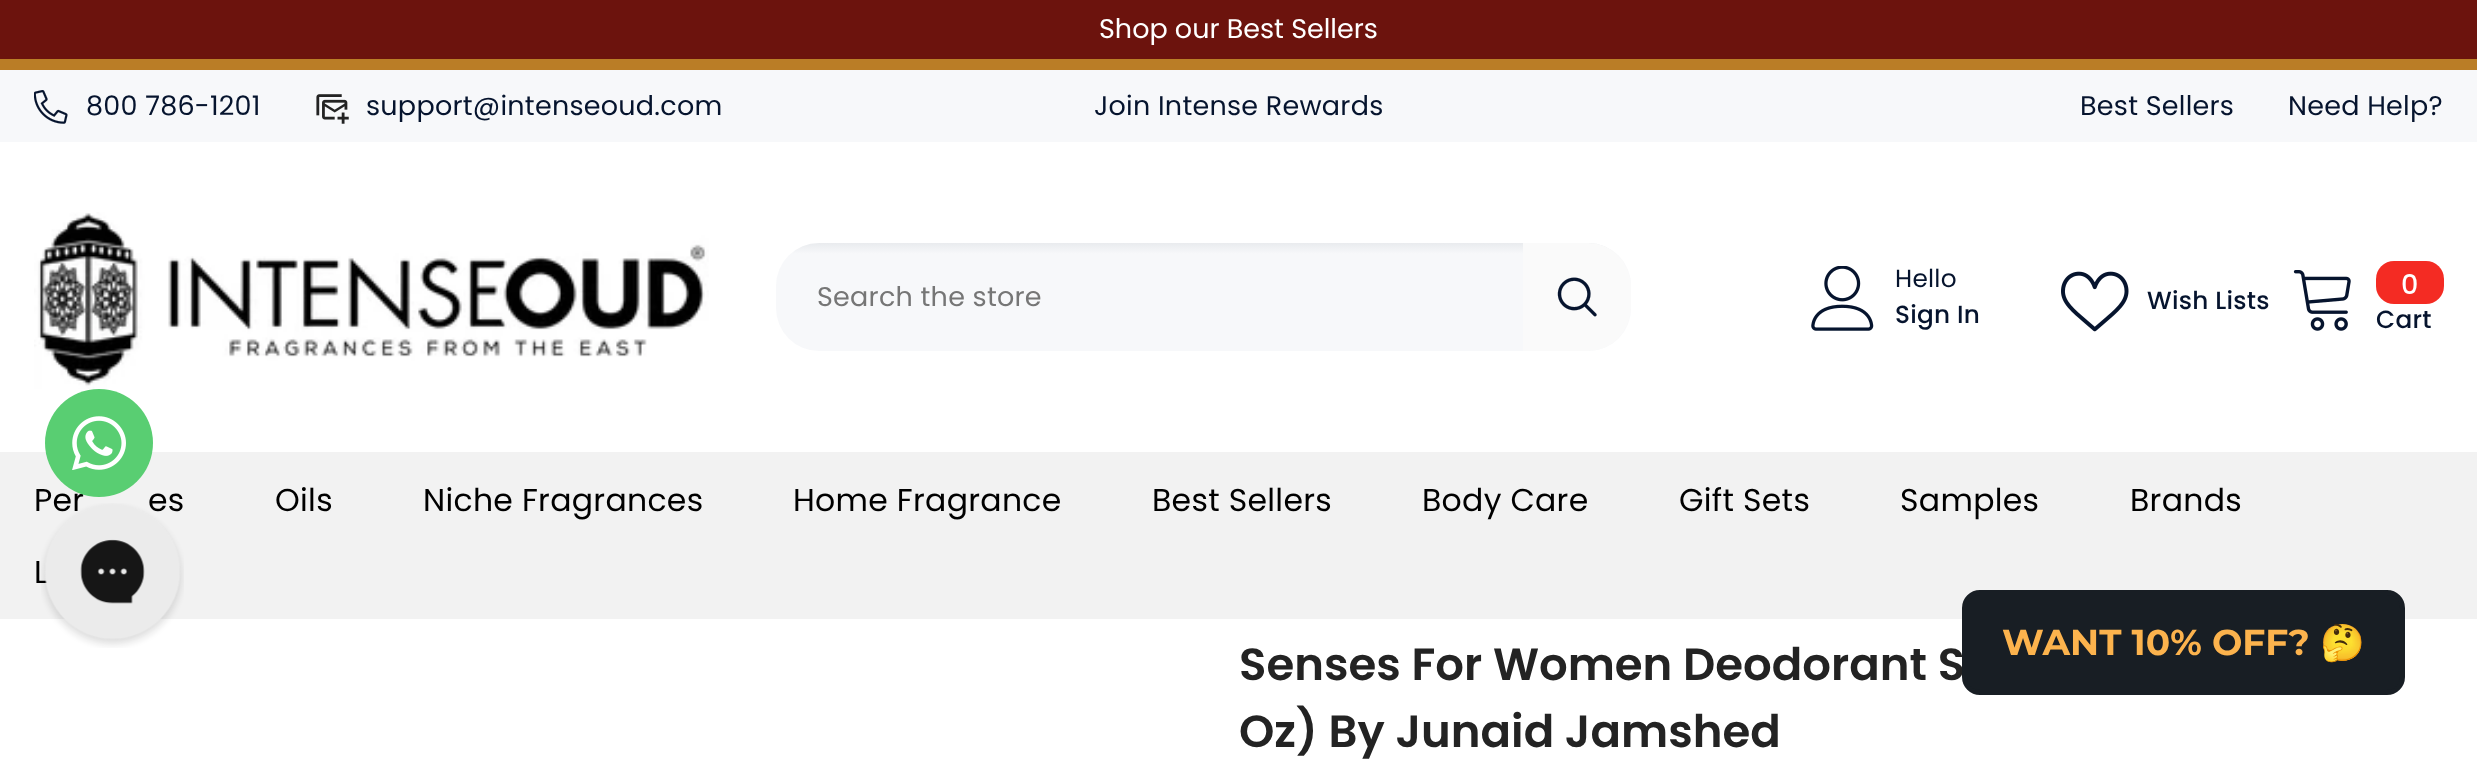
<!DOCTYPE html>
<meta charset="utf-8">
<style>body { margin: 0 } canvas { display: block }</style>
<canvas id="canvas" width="2477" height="767"></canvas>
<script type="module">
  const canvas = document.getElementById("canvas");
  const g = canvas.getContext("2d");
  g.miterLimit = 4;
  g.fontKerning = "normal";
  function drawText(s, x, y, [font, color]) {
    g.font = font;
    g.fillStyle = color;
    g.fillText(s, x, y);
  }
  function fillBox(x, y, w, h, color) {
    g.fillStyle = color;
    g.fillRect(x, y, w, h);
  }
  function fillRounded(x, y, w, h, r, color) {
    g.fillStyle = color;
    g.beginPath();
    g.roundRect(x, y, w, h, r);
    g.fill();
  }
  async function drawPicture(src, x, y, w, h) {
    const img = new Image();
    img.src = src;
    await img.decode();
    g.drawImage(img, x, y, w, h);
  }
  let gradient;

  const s1 = ["27px Poppins", "#FFFFFF"];
  const s2 = ["27px Poppins", "#06142E"];
  const s3 = ["27px Poppins", "#767676"];
  const s4 = ["24.75px Poppins", "#06142E"];
  const s5 = ["500 24.75px Poppins", "#06142E"];
  const s6 = ["500 27px Poppins", "#FFFFFF"];
  const s7 = ["31.5px Poppins", "#000000"];
  const s8 = ["600 45px Poppins", "#232323"];
  const s9 = ["bold 36px Montserrat", "#FCB34D"];
  const s10 = ["bold 36px Noto Color Emoji", "#FCB34D"];

  fillBox(0, 0, 2477, 767, "#FFFFFF");
  fillBox(0, 0, 2477, 59, "#6C130D");
  drawText("Shop our Best Sellers", 1099, 38, s1);
  fillBox(0, 59, 2477, 11, "#BA7D26");
  fillBox(0, 70, 2477, 72, "#F7F8FA");
  await drawPicture("pic1.png", 34, 90, 34, 34);
  g.letterSpacing = "0.25px";
  drawText("800 786-1201", 86, 115, s2);
  await drawPicture("pic2.png", 316, 94, 33, 30);
  drawText("support@intenseoud.com", 366, 115, s2);
  drawText("Join Intense Rewards", 1094, 115, s2);
  drawText("Best Sellers", 2080, 115, s2);
  drawText("Need Help?", 2288, 115, s2);
  await drawPicture("pic3.png", 34, 212, 675, 177);
  gradient = g.createLinearGradient(1204, 243, 1204, 351);
  gradient.addColorStop(0, "#E9EBEE");
  gradient.addColorStop(0.1, "#F7F8FA");
  gradient.addColorStop(1, "#F7F8FA");
  g.fillStyle = gradient;
  g.beginPath();
  g.roundRect(776, 243, 855, 108, 43);
  g.fill();
  drawText("Search the store", 817, 306, s3);
  g.fillStyle = "#FAFAFA";
  g.beginPath();
  g.roundRect(1523, 243, 108, 108, [0, 43, 43, 0]);
  g.fill();
  await drawPicture("pic4.png", 1557, 277, 40, 40);
  await drawPicture("pic5.png", 1811, 266, 63, 65);
  drawText("Hello", 1895, 287, s4);
  drawText("Sign In", 1895, 323, s5);
  await drawPicture("pic6.png", 2061, 271, 68, 61);
  drawText("Wish Lists", 2147, 309, s5);
  await drawPicture("pic7.png", 2293, 270, 58, 61);
  fillRounded(2376, 261, 68, 43, 18, "#F42B23");
  g.letterSpacing = "0px";
  drawText("0", 2401, 294, s6);
  g.letterSpacing = "0.25px";
  drawText("Cart", 2376, 328, s5);
  fillBox(0, 452, 2477, 167, "#F2F2F2");
  g.letterSpacing = "0.3px";
  drawText("Per", 34, 511, s7);
  drawText("es", 148, 511, s7);
  drawText("Oils", 275, 511, s7);
  drawText("Niche Fragrances", 423, 511, s7);
  drawText("Home Fragrance", 793, 511, s7);
  drawText("Best Sellers", 1152, 511, s7);
  drawText("Body Care", 1422, 511, s7);
  drawText("Gift Sets", 1679, 511, s7);
  drawText("Samples", 1900, 511, s7);
  drawText("Brands", 2130, 511, s7);
  drawText("L", 34, 583, s7);
  g.letterSpacing = "0px";
  drawText("Senses For Women Deodorant S", 1239, 680, s8);
  drawText("Oz) By Junaid Jamshed", 1239, 747, s8);
  g.fillStyle = "#59CE72";
  g.beginPath();
  g.arc(99, 443, 54, 0, Math.PI * 2);
  g.fill();
  await drawPicture("pic8.png", 72, 416, 54, 54);
  await drawPicture("pic9.png", 41, 503, 143, 145);
  g.fillStyle = "#181E24";
  g.beginPath();
  g.roundRect(1964.5, 592.5, 438, 100, 15.5);
  g.fill();
  g.strokeStyle = "#181E24";
  g.lineWidth = 5;
  g.stroke();
  drawText("WANT 10% OFF?", 2002, 655, s9);
  drawText("🤔", 2320, 655, s10);
</script>
